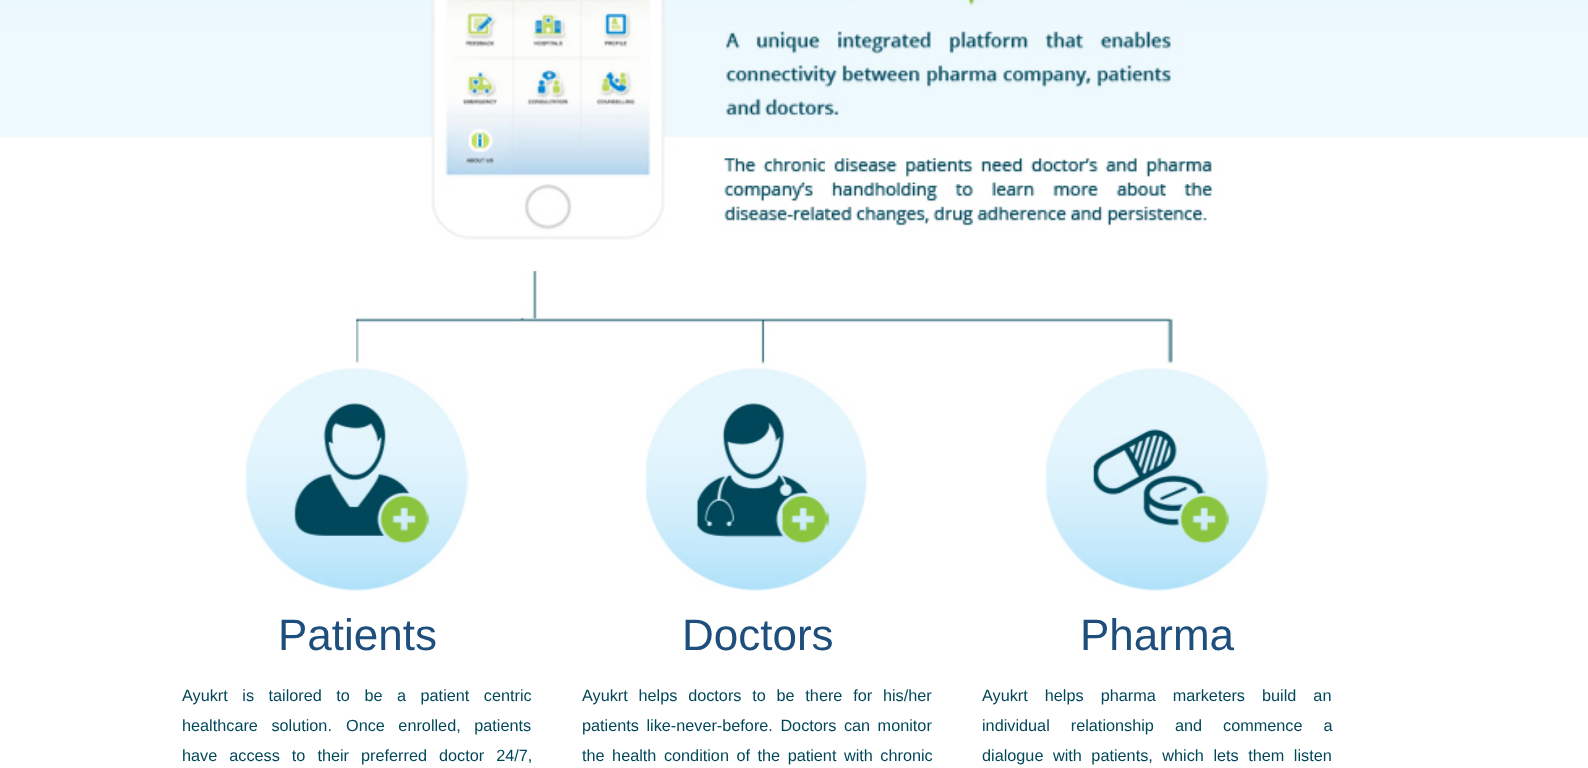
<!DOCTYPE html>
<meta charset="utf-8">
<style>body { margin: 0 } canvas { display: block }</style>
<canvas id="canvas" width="1588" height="768"></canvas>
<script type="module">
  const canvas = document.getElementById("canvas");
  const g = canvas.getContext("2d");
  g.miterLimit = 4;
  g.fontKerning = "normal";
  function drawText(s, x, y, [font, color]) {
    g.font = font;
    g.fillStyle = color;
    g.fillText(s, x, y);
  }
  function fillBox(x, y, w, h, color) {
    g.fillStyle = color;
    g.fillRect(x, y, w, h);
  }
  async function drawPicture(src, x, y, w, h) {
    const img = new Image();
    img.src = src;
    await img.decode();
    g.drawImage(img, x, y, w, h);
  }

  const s1 = ["44px Liberation Sans", "#1E4E7C"];
  const s2 = ["16.25px Liberation Sans", "#00475A"];

  fillBox(0, 0, 1588, 768, "#FFFFFF");
  await drawPicture("pic1.png", 0, 0, 1588, 240);
  await drawPicture("pic2.png", 354, 271, 819, 96);
  await drawPicture("pic3.png", 245, 368, 224, 223);
  drawText("Patients", 278, 650, s1);
  g.wordSpacing = "10px";
  drawText("Ayukrt is tailored to be a patient centric", 182, 701, s2);
  g.wordSpacing = "9px";
  drawText("healthcare solution.", 182, 731, s2);
  drawText("Once enrolled, patients", 346, 731, s2);
  g.wordSpacing = "7.5px";
  drawText("have access to their preferred doctor 24/7,", 182, 761, s2);
  await drawPicture("pic4.png", 645, 368, 222, 223);
  g.wordSpacing = "0px";
  drawText("Doctors", 682, 650, s1);
  g.wordSpacing = "6.25px";
  drawText("Ayukrt helps doctors to be there for his/her", 582, 701, s2);
  g.wordSpacing = "3px";
  drawText("patients like-never-before. Doctors can monitor", 582, 731, s2);
  drawText("the health condition of the patient with chronic", 582, 761, s2);
  await drawPicture("pic5.png", 1045, 368, 224, 223);
  g.wordSpacing = "0px";
  drawText("Pharma", 1080, 650, s1);
  g.wordSpacing = "12.5px";
  drawText("Ayukrt helps pharma marketers build an", 982, 701, s2);
  g.wordSpacing = "16.5px";
  drawText("individual relationship and commence a", 982, 731, s2);
  g.wordSpacing = "5px";
  drawText("dialogue with patients, which lets them listen", 982, 761, s2);
</script>
